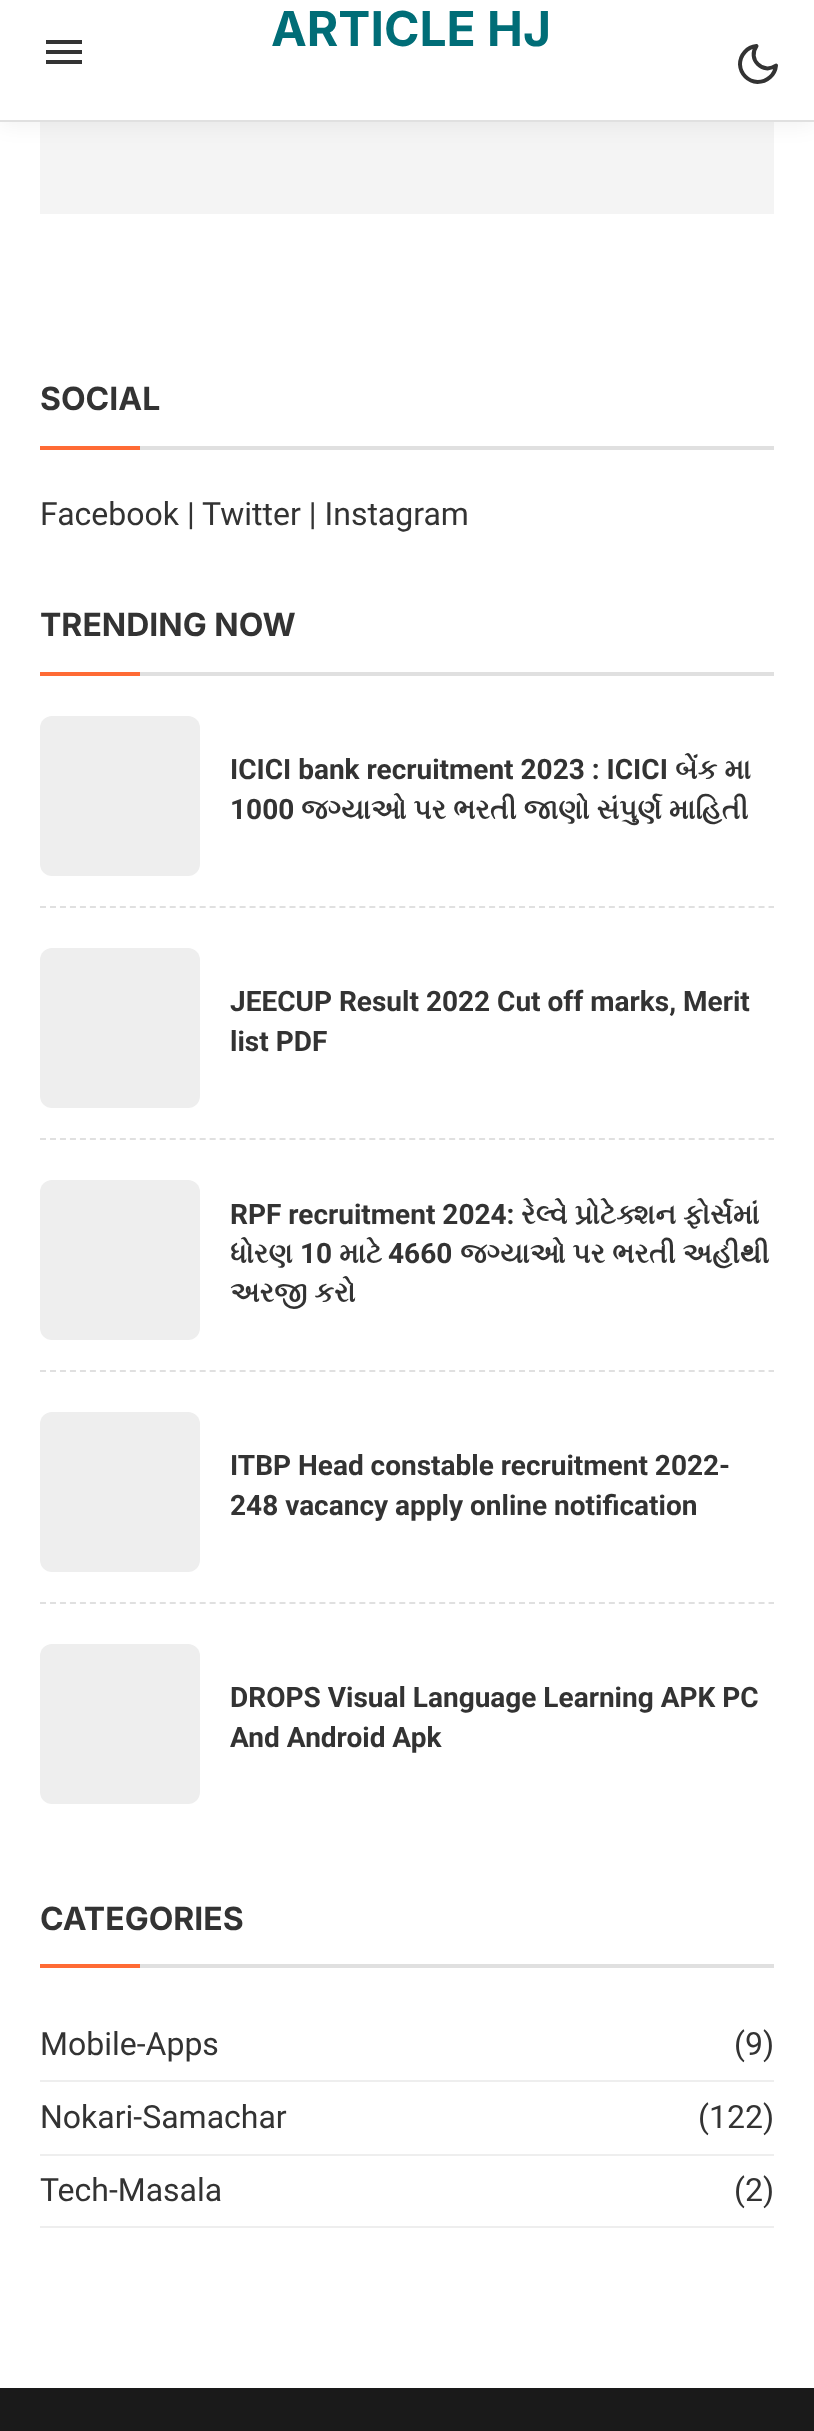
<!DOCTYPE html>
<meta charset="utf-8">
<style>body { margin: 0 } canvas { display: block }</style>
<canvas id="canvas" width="814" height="2431"></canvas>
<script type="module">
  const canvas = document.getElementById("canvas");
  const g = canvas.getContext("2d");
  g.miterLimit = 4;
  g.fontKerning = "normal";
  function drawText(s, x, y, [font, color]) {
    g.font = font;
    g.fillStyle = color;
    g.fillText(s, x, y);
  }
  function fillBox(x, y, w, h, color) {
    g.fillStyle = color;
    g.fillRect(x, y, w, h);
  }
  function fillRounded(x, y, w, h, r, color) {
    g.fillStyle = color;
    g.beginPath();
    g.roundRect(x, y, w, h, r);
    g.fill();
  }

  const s1 = ["bold 48px Inter", "#006D77"];
  const s2 = ["bold 32px Inter", "#333333"];
  const s3 = ["32px Roboto", "#333333"];
  const s4 = ["bold 28px Roboto", "#333333"];
  const s5 = ["bold 28px FreeSerif", "#333333"];

  fillBox(0, 0, 814, 2431, "#FFFFFF");
  fillBox(40, 122, 734, 92, "#F4F4F4");
  g.fillStyle = "rgba(0, 0, 0, 0.05)";
  g.filter = "blur(10px)";
  g.beginPath();
  g.rect(0, 4, 814, 122);
  g.fill();
  g.filter = "none";
  fillBox(0, 0, 814, 120, "#FFFFFF");
  fillBox(0, 120, 814, 2, "#E0E0E0");
  drawText("ARTICLE HJ", 271, 46, s1);
  g.fillStyle = "#333333";
  g.beginPath();
  g.moveTo(46, 64);
  g.lineTo(82, 64);
  g.lineTo(82, 60);
  g.lineTo(46, 60);
  g.closePath();
  g.moveTo(46, 54);
  g.lineTo(82, 54);
  g.lineTo(82, 50);
  g.lineTo(46, 50);
  g.closePath();
  g.moveTo(46, 40);
  g.lineTo(46, 44);
  g.lineTo(82, 44);
  g.lineTo(82, 40);
  g.closePath();
  g.fill();
  g.beginPath();
  g.moveTo(776, 65.5);
  g.bezierCurveTo(775, 75, 767, 82, 757.5, 82);
  g.bezierCurveTo(748, 81.5, 740.5, 74, 740, 64.5);
  g.bezierCurveTo(740, 55, 747, 47, 756.5, 46);
  g.bezierCurveTo(747, 59, 763, 75, 776, 65.5);
  g.closePath();
  g.strokeStyle = "#333333";
  g.lineWidth = 4;
  g.lineCap = "round";
  g.lineJoin = "round";
  g.stroke();
  fillBox(140, 446, 634, 4, "#E0E0E0");
  drawText("SOCIAL", 40, 410, s2);
  fillBox(40, 446, 100, 4, "#FF6B35");
  drawText("Facebook | Twitter | Instagram", 40, 525, s3);
  fillBox(140, 672, 634, 4, "#E0E0E0");
  drawText("TRENDING NOW", 40, 636, s2);
  fillBox(40, 672, 100, 4, "#FF6B35");
  g.beginPath();
  g.moveTo(40, 907);
  g.lineTo(774, 907);
  g.strokeStyle = "#E0E0E0";
  g.lineWidth = 2;
  g.lineCap = "butt";
  g.lineJoin = "miter";
  g.setLineDash([6, 3.98]);
  g.stroke();
  fillRounded(40, 716, 160, 160, 12, "#EEEEEE");
  drawText("ICICI bank recruitment 2023 : ICICI", 230, 779, s4);
  drawText("બેંક મા", 675, 779, s5);
  drawText("1000", 230, 819, s4);
  drawText("જગ્યાઓ પર ભરતી જાણો સંપુર્ણ માહિતી", 301, 819, s5);
  g.beginPath();
  g.moveTo(40, 1139);
  g.lineTo(774, 1139);
  g.stroke();
  fillRounded(40, 948, 160, 160, 12, "#EEEEEE");
  drawText("JEECUP Result 2022 Cut off marks, Merit", 230, 1011, s4);
  drawText("list PDF", 230, 1051, s4);
  g.beginPath();
  g.moveTo(40, 1371);
  g.lineTo(774, 1371);
  g.stroke();
  fillRounded(40, 1180, 160, 160, 12, "#EEEEEE");
  drawText("RPF recruitment 2024:", 230, 1224, s4);
  drawText("રેલ્વે પ્રોટેક્શન ફોર્સમાં", 521, 1224, s5);
  drawText("ધોરણ", 230, 1263, s5);
  drawText("10", 300, 1263, s4);
  drawText("માટે", 339, 1263, s5);
  drawText("4660", 388, 1263, s4);
  drawText("જગ્યાઓ પર ભરતી અહીથી", 460, 1263, s5);
  drawText("અરજી કરો", 230, 1302, s5);
  g.beginPath();
  g.moveTo(40, 1603);
  g.lineTo(774, 1603);
  g.stroke();
  fillRounded(40, 1412, 160, 160, 12, "#EEEEEE");
  drawText("ITBP Head constable recruitment 2022-", 230, 1475, s4);
  drawText("248 vacancy apply online notification", 230, 1515, s4);
  fillRounded(40, 1644, 160, 160, 12, "#EEEEEE");
  drawText("DROPS Visual Language Learning APK PC", 230, 1707, s4);
  drawText("And Android Apk", 230, 1747, s4);
  fillBox(140, 1964, 634, 4, "#E0E0E0");
  drawText("CATEGORIES", 40, 1930, s2);
  fillBox(40, 1964, 100, 4, "#FF6B35");
  fillBox(40, 2080, 734, 2, "#EEEEEE");
  drawText("Mobile-Apps", 40, 2055, s3);
  drawText("(9)", 734, 2055, s3);
  fillBox(40, 2154, 734, 2, "#EEEEEE");
  drawText("Nokari-Samachar", 40, 2128, s3);
  drawText("(122)", 698, 2128, s3);
  fillBox(40, 2226, 734, 2, "#EEEEEE");
  drawText("Tech-Masala", 40, 2201, s3);
  drawText("(2)", 734, 2201, s3);
  fillBox(0, 2388, 814, 43, "#1A1A1A");
</script>
